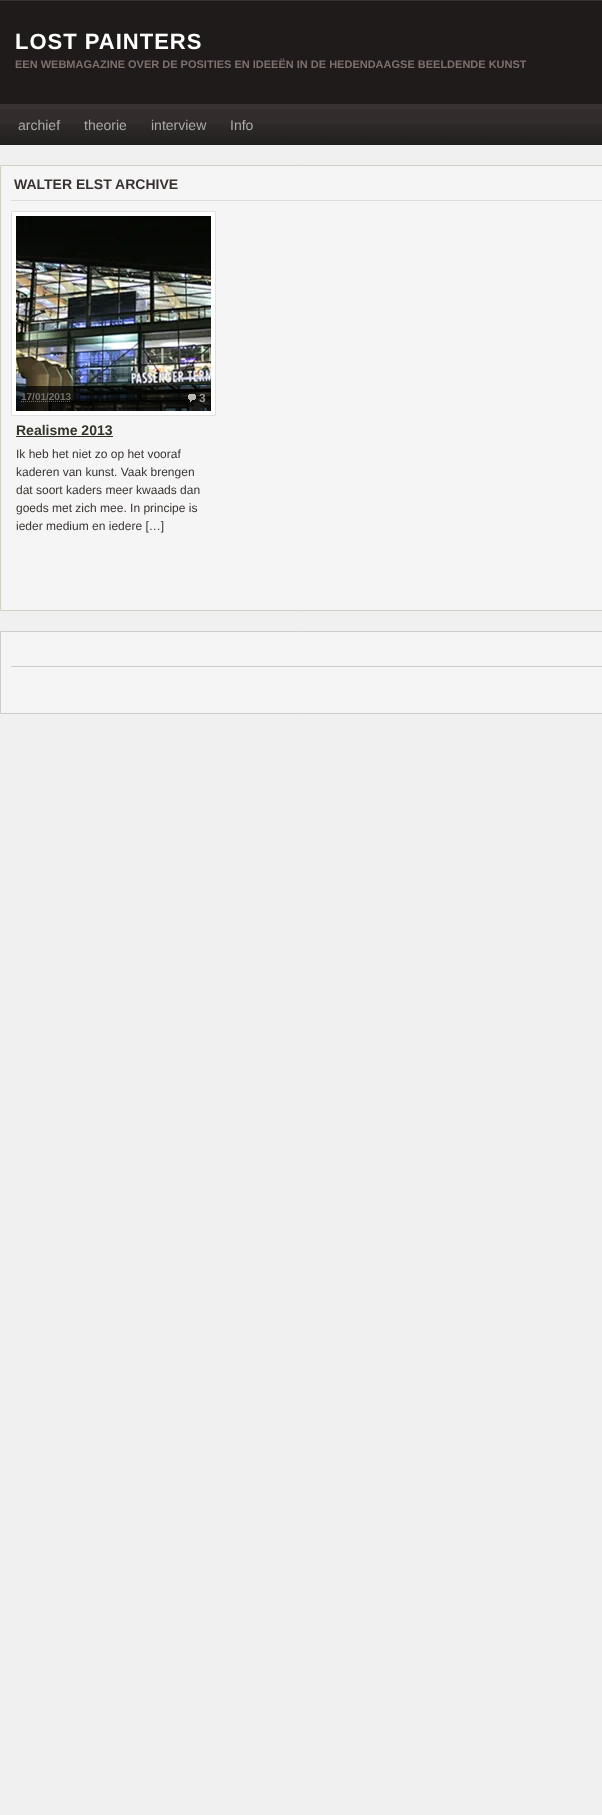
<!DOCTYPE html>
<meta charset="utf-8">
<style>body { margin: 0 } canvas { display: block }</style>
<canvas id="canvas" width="602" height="1815"></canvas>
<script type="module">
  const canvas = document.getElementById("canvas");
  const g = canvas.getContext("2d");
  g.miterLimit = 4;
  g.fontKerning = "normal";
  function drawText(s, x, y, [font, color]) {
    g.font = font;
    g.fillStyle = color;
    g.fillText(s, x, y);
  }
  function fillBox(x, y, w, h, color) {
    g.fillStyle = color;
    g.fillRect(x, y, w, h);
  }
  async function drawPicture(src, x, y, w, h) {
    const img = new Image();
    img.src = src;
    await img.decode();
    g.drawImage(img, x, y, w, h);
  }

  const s1 = ["bold 22px Liberation Sans", "#FFFFFF"];
  const s2 = ["bold 11px Liberation Sans", "#7D716D"];
  const s3 = ["14px Liberation Sans", "#AAAAAA"];
  const s4 = ["bold 14px Liberation Sans", "#383331"];
  const s5 = ["bold 10px Liberation Sans", "#737371"];
  const s6 = ["bold 12px Liberation Sans", "#969694"];
  const s7 = ["bold 14px Liberation Sans", "#313428"];
  const s8 = ["12px Liberation Sans", "#383331"];

  fillBox(0, 0, 602, 1815, "#F0F0F0");
  fillBox(0, 0, 602, 1, "#333333");
  fillBox(0, 1, 602, 103, "#1E1B1A");
  fillBox(0, 104, 602, 5, "#383332");
  g.letterSpacing = "1px";
  drawText("LOST PAINTERS", 15, 49, s1);
  g.letterSpacing = "0px";
  drawText("EEN WEBMAGAZINE OVER DE POSITIES EN IDEEËN IN DE HEDENDAAGSE BEELDENDE KUNST", 15, 68, s2);
  fillBox(0, 109, 602, 15, "#322C2C");
  await drawPicture("pic1.png", 0, 124, 602, 21);
  drawText("archief", 18, 130, s3);
  drawText("theorie", 84, 130, s3);
  drawText("interview", 151, 130, s3);
  drawText("Info", 230, 130, s3);
  g.fillStyle = "#F5F5F5";
  g.beginPath();
  g.rect(0.5, 165.5, 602, 445);
  g.fill();
  g.strokeStyle = "#D3D1C7";
  g.stroke();
  fillBox(11, 200, 591, 1, "#DDDDDD");
  drawText("WALTER ELST ARCHIVE", 14, 189, s4);
  g.fillStyle = "#FFFFFF";
  g.beginPath();
  g.rect(11.5, 211.5, 204, 204);
  g.fill();
  g.strokeStyle = "#E1E1E1";
  g.stroke();
  await drawPicture("pic2.png", 16, 216, 195, 195);
  fillBox(16, 386, 195, 25, "rgba(0, 0, 0, 0.7)");
  drawText("17/01/2013", 21, 400, s5);
  g.beginPath();
  g.moveTo(21, 401.5);
  g.lineTo(71, 401.5);
  g.strokeStyle = "rgba(153, 153, 153, 0.7)";
  g.setLineDash([1, 1]);
  g.stroke();
  await drawPicture("pic3.png", 188, 394, 8, 8);
  drawText("3", 199, 402, s6);
  drawText("Realisme 2013", 16, 435, s7);
  fillBox(16, 436, 97, 1, "#313428");
  drawText("Ik heb het niet zo op het vooraf", 16, 458, s8);
  drawText("kaderen van kunst. Vaak brengen", 16, 476, s8);
  drawText("dat soort kaders meer kwaads dan", 16, 494, s8);
  drawText("goeds met zich mee. In principe is", 16, 512, s8);
  drawText("ieder medium en iedere […]", 16, 530, s8);
  g.fillStyle = "#F5F5F5";
  g.beginPath();
  g.rect(0.5, 631.5, 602, 82);
  g.fill();
  g.strokeStyle = "#CCCCCC";
  g.setLineDash([]);
  g.stroke();
  fillBox(11, 666, 591, 1, "#CCCCCC");
</script>
